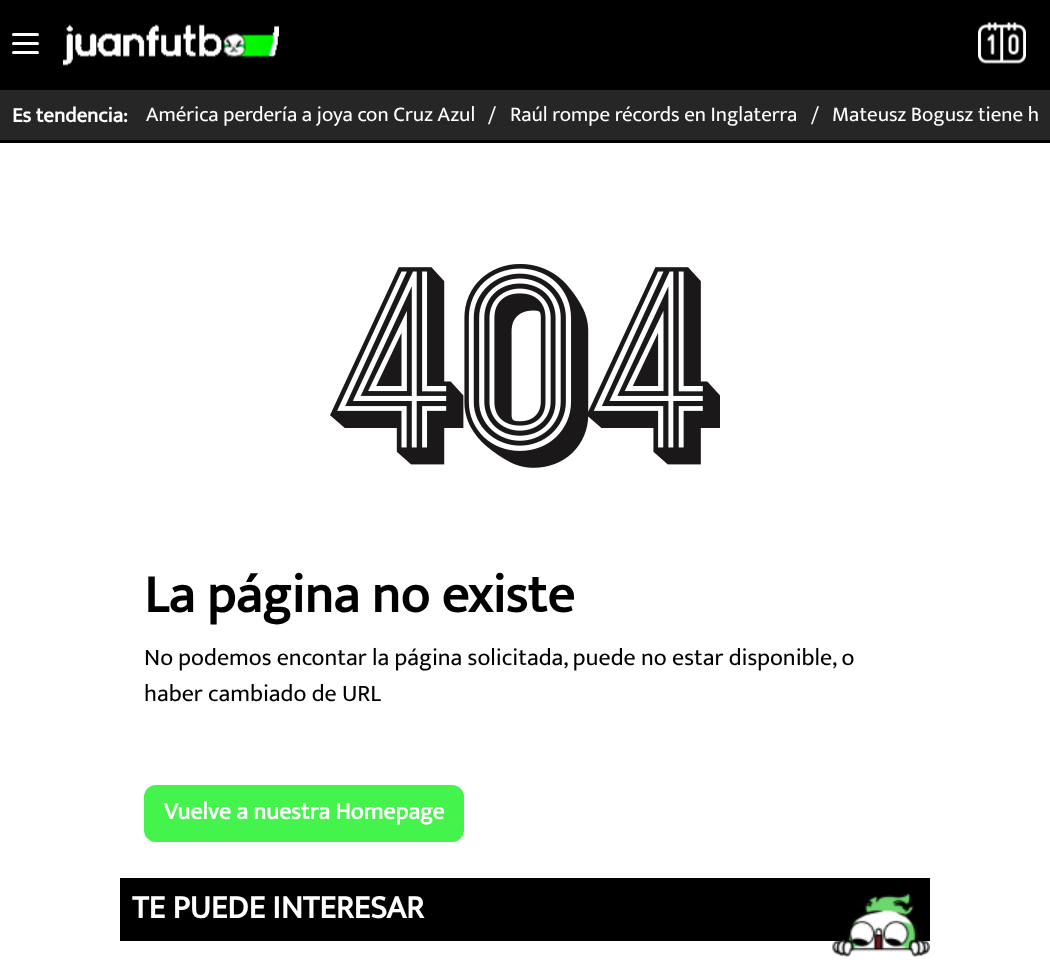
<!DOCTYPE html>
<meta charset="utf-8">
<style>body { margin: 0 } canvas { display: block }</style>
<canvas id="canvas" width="1050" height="963"></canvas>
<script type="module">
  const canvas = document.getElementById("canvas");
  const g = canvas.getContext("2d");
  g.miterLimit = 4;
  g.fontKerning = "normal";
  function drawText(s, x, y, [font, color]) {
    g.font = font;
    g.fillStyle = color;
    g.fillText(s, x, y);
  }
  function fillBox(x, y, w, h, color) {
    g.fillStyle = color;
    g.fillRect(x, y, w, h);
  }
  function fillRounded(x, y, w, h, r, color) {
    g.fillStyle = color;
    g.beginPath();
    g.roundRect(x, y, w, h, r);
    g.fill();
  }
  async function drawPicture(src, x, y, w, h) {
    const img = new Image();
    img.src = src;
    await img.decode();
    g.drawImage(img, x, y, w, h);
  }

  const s1 = ["bold 21px Mukta", "#FFFFFF"];
  const s2 = ["21px Mukta", "#FFFFFF"];
  const s3 = ["bold 54px Mukta", "#000000"];
  const s4 = ["24px Mukta", "#000000"];
  const s5 = ["bold 24px Mukta", "#FFFFFF"];
  const s6 = ["bold 33px Mukta", "#FFFFFF"];

  fillBox(0, 0, 1050, 963, "#FFFFFF");
  fillBox(0, 0, 1050, 143, "#000000");
  fillRounded(12, 33, 27, 3, 1.5, "#FFFFFF");
  fillRounded(12, 42, 27, 3, 1.5, "#FFFFFF");
  fillRounded(12, 51, 27, 3, 1.5, "#FFFFFF");
  await drawPicture("pic1.png", 63, 24, 216, 42);
  await drawPicture("pic2.png", 978, 22, 48, 42);
  fillBox(0, 90, 1050, 50, "#262626");
  drawText("Es tendencia:", 12, 122, s1);
  drawText("América perdería a joya con Cruz Azul", 146, 121, s2);
  drawText("/", 488, 122, s2);
  drawText("Raúl rompe récords en Inglaterra", 510, 121, s2);
  drawText("/", 811, 122, s2);
  drawText("Mateusz Bogusz tiene h", 832, 121, s2);
  await drawPicture("pic3.png", 330, 264, 390, 204);
  drawText("La página no existe", 144, 612, s3);
  drawText("No podemos encontar la página solicitada, puede no estar disponible, o", 144, 665, s4);
  drawText("haber cambiado de URL", 144, 701, s4);
  g.fillStyle = "#45F34D";
  g.beginPath();
  g.roundRect(145, 786, 318, 55, 11);
  g.fill();
  g.strokeStyle = "#45F34D";
  g.lineWidth = 2;
  g.stroke();
  drawText("Vuelve a nuestra Homepage", 164, 819, s5);
  fillBox(120, 878, 810, 63, "#000000");
  drawText("TE PUEDE INTERESAR", 132, 918, s6);
  await drawPicture("pic4.png", 832, 892, 98, 65);
</script>
